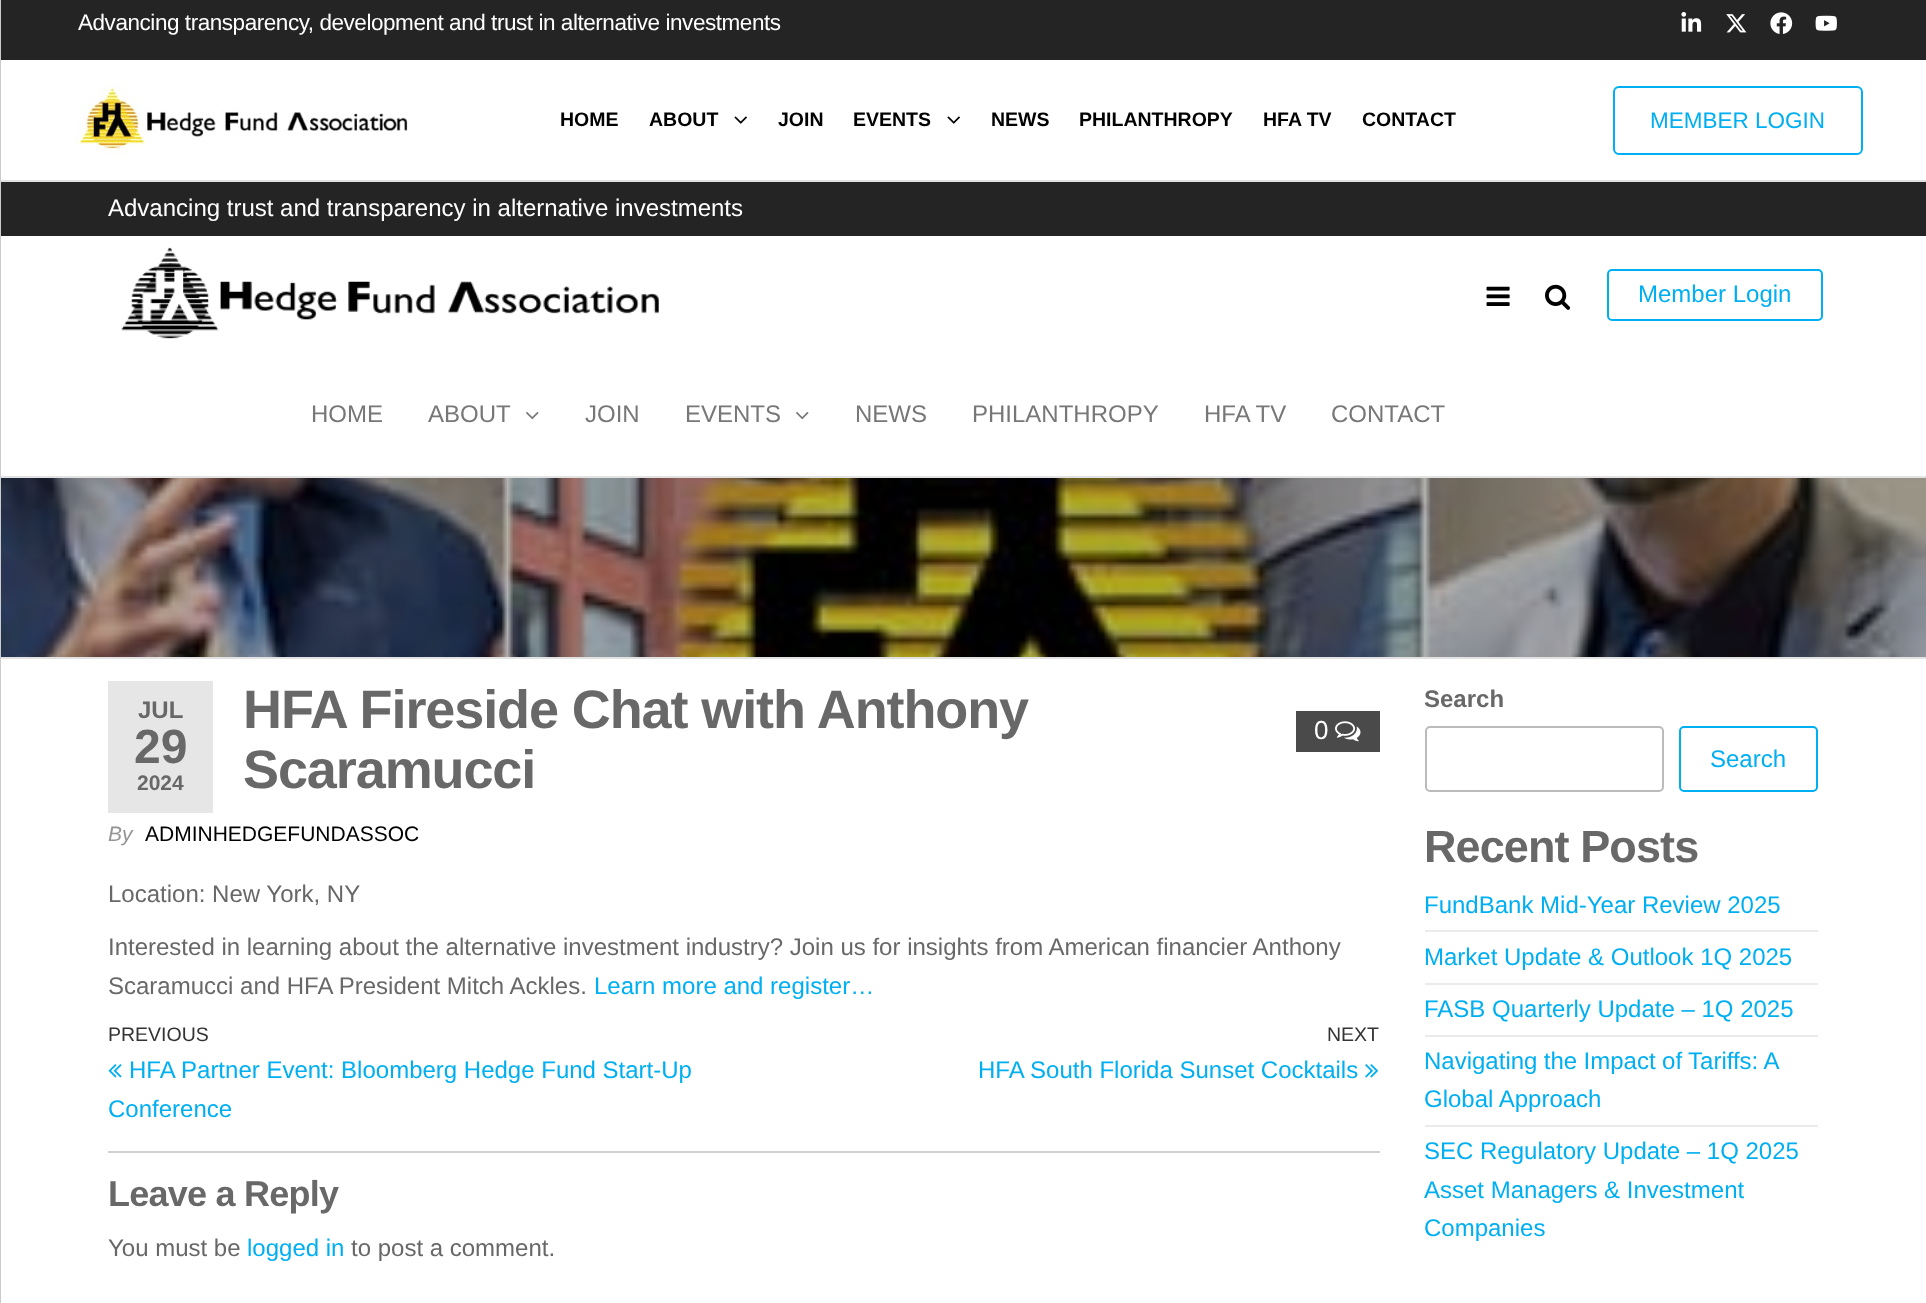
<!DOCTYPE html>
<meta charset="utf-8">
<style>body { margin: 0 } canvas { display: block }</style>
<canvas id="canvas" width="1926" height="1303"></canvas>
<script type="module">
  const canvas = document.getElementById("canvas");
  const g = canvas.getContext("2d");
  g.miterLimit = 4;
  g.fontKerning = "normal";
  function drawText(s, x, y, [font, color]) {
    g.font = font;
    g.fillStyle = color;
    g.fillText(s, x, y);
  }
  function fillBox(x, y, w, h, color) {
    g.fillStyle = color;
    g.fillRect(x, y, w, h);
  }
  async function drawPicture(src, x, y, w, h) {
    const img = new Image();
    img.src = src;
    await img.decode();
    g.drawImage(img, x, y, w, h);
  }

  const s1 = ["22.5px Liberation Sans", "#FFFFFF"];
  const s2 = ["bold 19.5px Liberation Sans", "#000000"];
  const s3 = ["22.5px Liberation Sans", "#00AFF2"];
  const s4 = ["24px Liberation Sans", "#FFFFFF"];
  const s5 = ["24px Liberation Sans", "#00AFF2"];
  const s6 = ["24px Liberation Sans", "#777777"];
  const s7 = ["bold 54px Liberation Sans", "#686868"];
  const s8 = ["bold 24px Liberation Sans", "#686868"];
  const s9 = ["bold 48px Liberation Sans", "#686868"];
  const s10 = ["bold 21px Liberation Sans", "#686868"];
  const s11 = ["26px Liberation Sans", "#FFFFFF"];
  const s12 = ["italic 21px Liberation Sans", "#959595"];
  const s13 = ["21px Liberation Sans", "#000000"];
  const s14 = ["24px Liberation Sans", "#686868"];
  const s15 = ["19.5px Liberation Sans", "#333333"];
  const s16 = ["bold 36px Liberation Sans", "#686868"];
  const s17 = ["bold 45px Liberation Sans", "#686868"];

  fillBox(0, 0, 1926, 1303, "#FFFFFF");
  fillBox(0, 180, 1926, 2, "#DFDFDF");
  fillBox(0, 476, 1926, 2, "#E2E2E2");
  fillBox(0, 657, 1926, 2, "#E2E2E2");
  fillBox(0, 0, 1, 1303, "#CBCBCB");
  fillBox(1, 0, 1925, 60, "#242424");
  g.letterSpacing = "-0.45px";
  drawText("Advancing transparency, development and trust in alternative investments", 78, 30, s1);
  await drawPicture("pic1.png", 1681, 12, 21, 20);
  await drawPicture("pic2.png", 1726, 14, 21, 19);
  await drawPicture("pic3.png", 1770, 12, 23, 22);
  await drawPicture("pic4.png", 1815, 15, 22, 16);
  await drawPicture("pic5.png", 75, 83, 333, 74);
  g.letterSpacing = "0px";
  drawText("HOME", 560, 126, s2);
  drawText("ABOUT", 649, 126, s2);
  await drawPicture("pic6.png", 734, 116, 13, 8);
  drawText("JOIN", 778, 126, s2);
  drawText("EVENTS", 853, 126, s2);
  await drawPicture("pic6.png", 947, 116, 13, 8);
  drawText("NEWS", 991, 126, s2);
  drawText("PHILANTHROPY", 1079, 126, s2);
  drawText("HFA TV", 1263, 126, s2);
  drawText("CONTACT", 1362, 126, s2);
  g.beginPath();
  g.roundRect(1614, 87, 248, 67, 5);
  g.strokeStyle = "#00AFF2";
  g.lineWidth = 2;
  g.stroke();
  drawText("MEMBER LOGIN", 1650, 128, s3);
  fillBox(1, 182, 1925, 54, "#242424");
  drawText("Advancing trust and transparency in alternative investments", 108, 216, s4);
  await drawPicture("pic7.png", 121, 247, 538, 92);
  await drawPicture("pic8.png", 1486, 286, 24, 20);
  await drawPicture("pic9.png", 1545, 284, 25, 26);
  g.beginPath();
  g.roundRect(1608, 270, 214, 50, 4);
  g.stroke();
  drawText("Member Login", 1638, 302, s5);
  drawText("HOME", 311, 422, s6);
  drawText("ABOUT", 428, 422, s6);
  await drawPicture("pic10.png", 526, 412, 13, 8);
  drawText("JOIN", 585, 422, s6);
  drawText("EVENTS", 685, 422, s6);
  await drawPicture("pic10.png", 796, 412, 13, 8);
  drawText("NEWS", 855, 422, s6);
  drawText("PHILANTHROPY", 972, 422, s6);
  drawText("HFA TV", 1204, 422, s6);
  drawText("CONTACT", 1331, 422, s6);
  await drawPicture("pic11.png", 1, 478, 1925, 179);
  g.letterSpacing = "-1.1px";
  drawText("HFA Fireside Chat with Anthony", 243, 728, s7);
  drawText("Scaramucci", 243, 788, s7);
  fillBox(108, 681, 105, 132, "#E6E6E6");
  g.letterSpacing = "0px";
  drawText("JUL", 138, 718, s8);
  drawText("29", 134, 763, s9);
  drawText("2024", 137, 790, s10);
  fillBox(1296, 711, 84, 41, "#4A4A4A");
  drawText("0", 1314, 739, s11);
  await drawPicture("pic12.png", 1335, 721, 26, 21);
  drawText("By", 108, 841, s12);
  drawText("ADMINHEDGEFUNDASSOC", 145, 841, s13);
  drawText("Location: New York, NY", 108, 902, s14);
  drawText("Interested in learning about the alternative investment industry? Join us for insights from American financier Anthony", 108, 955, s14);
  drawText("Scaramucci and HFA President Mitch Ackles.", 108, 994, s14);
  drawText("Learn more and register…", 594, 994, s5);
  fillBox(108, 1151, 1272, 2, "#D1D1D1");
  drawText("PREVIOUS", 108, 1041, s15);
  await drawPicture("pic13.png", 108, 1064, 14, 14);
  drawText("HFA Partner Event: Bloomberg Hedge Fund Start-Up", 129, 1078, s5);
  drawText("Conference", 108, 1117, s5);
  drawText("NEXT", 1327, 1041, s15);
  drawText("HFA South Florida Sunset Cocktails", 978, 1078, s5);
  await drawPicture("pic14.png", 1365, 1064, 14, 14);
  g.letterSpacing = "-0.75px";
  drawText("Leave a Reply", 108, 1206, s16);
  g.letterSpacing = "0px";
  drawText("You must be", 108, 1256, s14);
  drawText("logged in", 247, 1256, s5);
  drawText("to post a comment.", 351, 1256, s14);
  drawText("Search", 1424, 707, s8);
  g.beginPath();
  g.roundRect(1426, 727, 237, 64, 4);
  g.strokeStyle = "#BBBBBB";
  g.stroke();
  g.beginPath();
  g.roundRect(1680, 727, 137, 64, 4);
  g.strokeStyle = "#00AFF2";
  g.stroke();
  drawText("Search", 1710, 767, s5);
  g.letterSpacing = "-0.9px";
  drawText("Recent Posts", 1424, 862, s17);
  fillBox(1425, 930, 393, 2, "#EBEBEB");
  g.letterSpacing = "0px";
  drawText("FundBank Mid-Year Review 2025", 1424, 913, s5);
  fillBox(1425, 983, 393, 2, "#EBEBEB");
  drawText("Market Update & Outlook 1Q 2025", 1424, 965, s5);
  fillBox(1425, 1035, 393, 2, "#EBEBEB");
  drawText("FASB Quarterly Update – 1Q 2025", 1424, 1017, s5);
  fillBox(1425, 1125, 393, 2, "#EBEBEB");
  g.wordSpacing = "-0.25px";
  drawText("Navigating the Impact of Tariffs: A", 1424, 1069, s5);
  g.wordSpacing = "0px";
  drawText("Global Approach", 1424, 1107, s5);
  drawText("SEC Regulatory Update – 1Q 2025", 1424, 1159, s5);
  drawText("Asset Managers & Investment", 1424, 1198, s5);
  drawText("Companies", 1424, 1236, s5);
</script>
